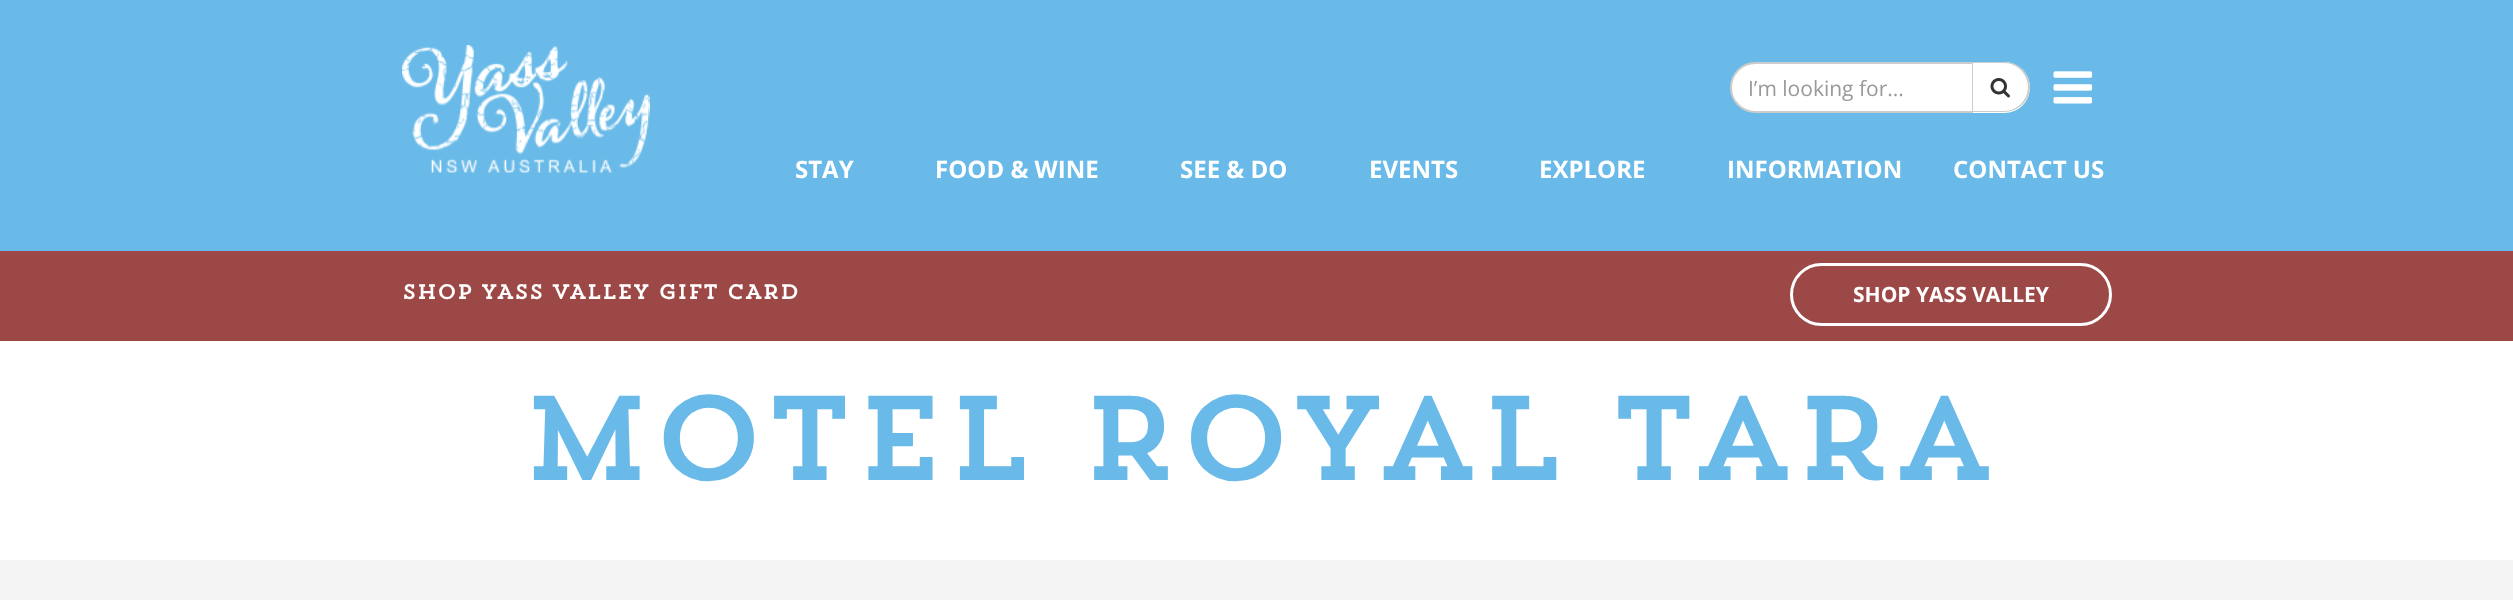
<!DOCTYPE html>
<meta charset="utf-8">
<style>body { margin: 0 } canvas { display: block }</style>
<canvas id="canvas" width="2513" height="600"></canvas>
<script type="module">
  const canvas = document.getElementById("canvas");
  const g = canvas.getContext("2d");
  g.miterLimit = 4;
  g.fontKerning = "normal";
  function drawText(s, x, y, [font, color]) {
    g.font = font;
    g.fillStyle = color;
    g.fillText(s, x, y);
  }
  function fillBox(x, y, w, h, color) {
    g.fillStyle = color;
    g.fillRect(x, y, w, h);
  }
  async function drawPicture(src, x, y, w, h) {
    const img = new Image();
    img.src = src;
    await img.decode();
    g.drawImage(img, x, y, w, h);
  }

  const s1 = ["21px Open Sans", "#999999"];
  const s2 = ["bold 24px Open Sans", "#FFFFFF"];
  const s3 = ["200 21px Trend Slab", "#FFFFFF"];
  const s4 = ["bold 21px Open Sans", "#FFFFFF"];
  const s5 = ["200 120px Trend Slab", "#69BAE8"];

  fillBox(0, 0, 2513, 600, "#F4F4F4");
  fillBox(0, 0, 2513, 251, "#69BAE8");
  await drawPicture("pic1.png", 402, 45, 248, 128);
  g.fillStyle = "#FFFFFF";
  g.beginPath();
  g.roundRect(1731, 63, 242, 49, [24.5, 0, 0, 24.5]);
  g.fill();
  g.strokeStyle = "#CCCCCC";
  g.lineWidth = 2;
  g.stroke();
  drawText("I’m looking for...", 1748, 96, s1);
  g.fillStyle = "#FFFFFF";
  g.beginPath();
  g.roundRect(1973, 62, 57, 51, [0, 25.5, 25.5, 0]);
  g.fill();
  g.fillStyle = "#CCCCCC";
  g.beginPath();
  g.moveTo(1972, 62);
  g.lineTo(2004, 62);
  g.bezierCurveTo(2018, 62, 2030, 73, 2030, 87);
  g.bezierCurveTo(2030, 101, 2018, 112, 2004, 112);
  g.lineTo(1972, 112);
  g.closePath();
  g.moveTo(1972, 63);
  g.lineTo(2004, 63);
  g.bezierCurveTo(2017, 63, 2028, 74, 2028, 87);
  g.bezierCurveTo(2028, 100, 2017, 111, 2004, 111);
  g.lineTo(1972, 111);
  g.closePath();
  g.fill("evenodd");
  await drawPicture("pic2.png", 1990, 78, 20, 20);
  await drawPicture("pic3.png", 2053, 71, 40, 33);
  drawText("STAY", 795, 178, s2);
  drawText("FOOD & WINE", 935, 178, s2);
  drawText("SEE & DO", 1180, 178, s2);
  drawText("EVENTS", 1369, 178, s2);
  drawText("EXPLORE", 1539, 178, s2);
  drawText("INFORMATION", 1727, 178, s2);
  drawText("CONTACT US", 1953, 178, s2);
  fillBox(0, 251, 2513, 90, "#9C4847");
  drawText("SHOP YASS VALLEY GIFT CARD", 402, 299, s3);
  g.beginPath();
  g.roundRect(1791.5, 264.5, 319, 60, 30);
  g.strokeStyle = "#FFFFFF";
  g.lineWidth = 3;
  g.stroke();
  drawText("SHOP YASS VALLEY", 1853, 302, s4);
  fillBox(0, 341, 2513, 219, "#FFFFFF");
  drawText("Motel Royal Tara", 520, 480, s5);
</script>
